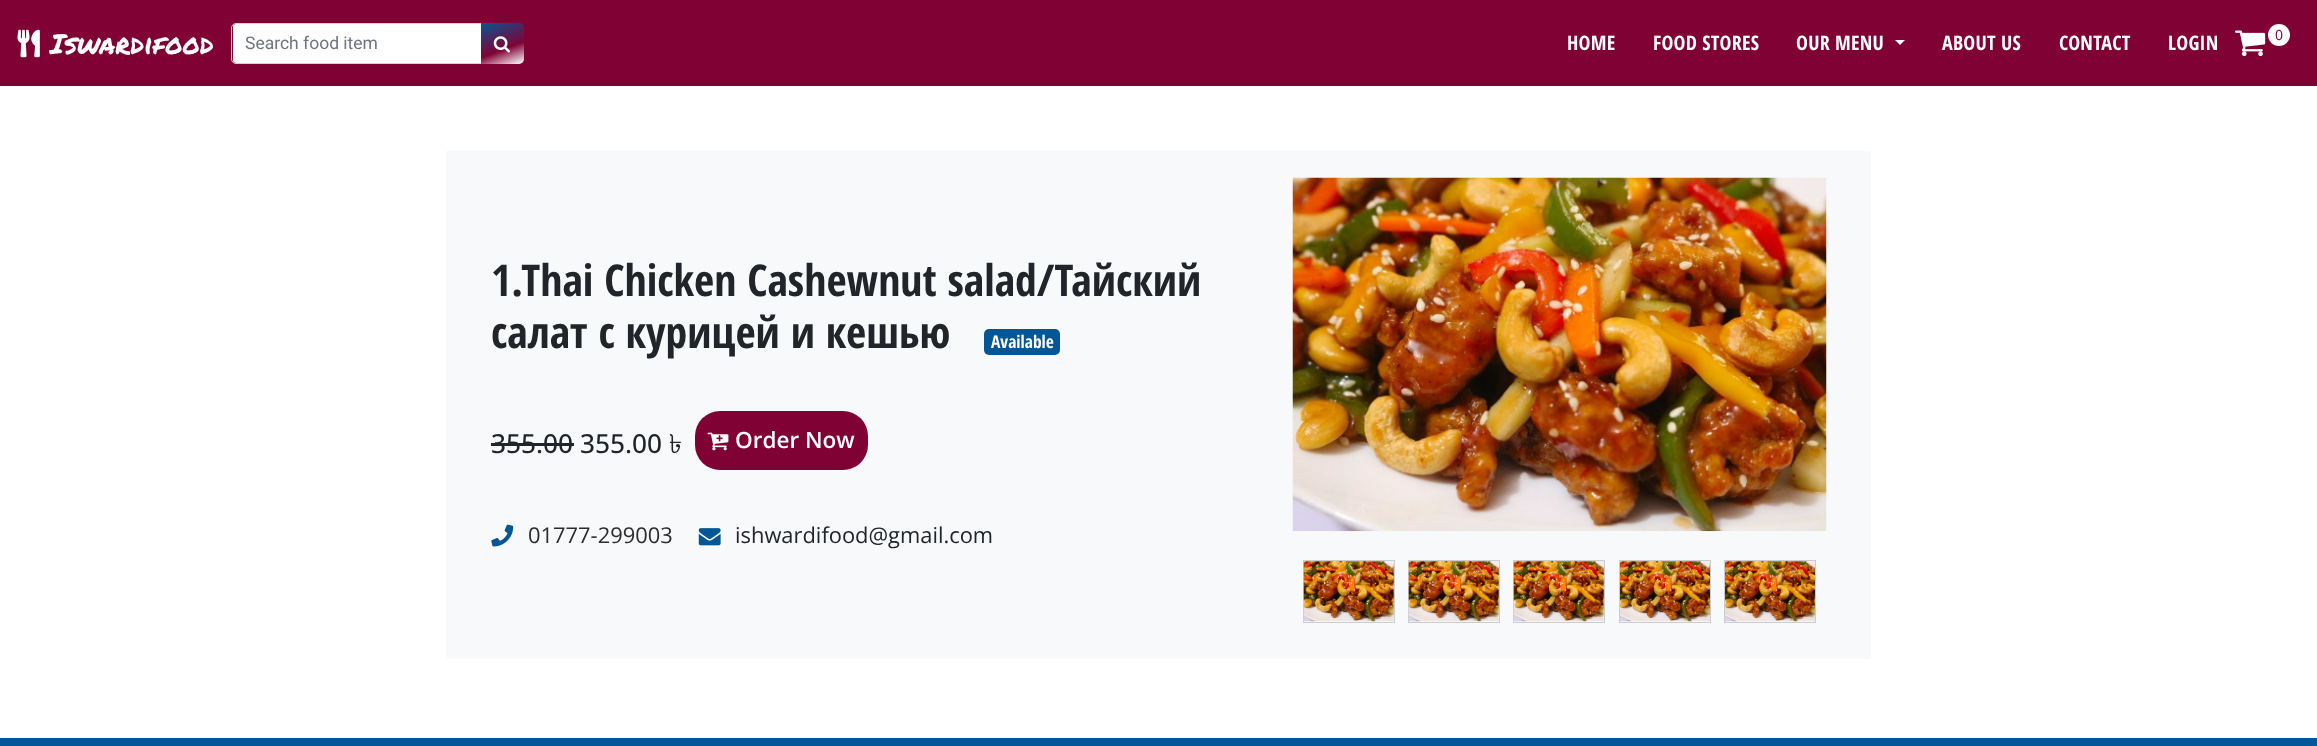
<!DOCTYPE html>
<meta charset="utf-8">
<style>body { margin: 0 } canvas { display: block }</style>
<canvas id="canvas" width="2317" height="746"></canvas>
<script type="module">
  const canvas = document.getElementById("canvas");
  const g = canvas.getContext("2d");
  g.miterLimit = 4;
  g.fontKerning = "normal";
  function drawText(s, x, y, [font, color]) {
    g.font = font;
    g.fillStyle = color;
    g.fillText(s, x, y);
  }
  function fillBox(x, y, w, h, color) {
    g.fillStyle = color;
    g.fillRect(x, y, w, h);
  }
  function fillRounded(x, y, w, h, r, color) {
    g.fillStyle = color;
    g.beginPath();
    g.roundRect(x, y, w, h, r);
    g.fill();
  }
  async function drawPicture(src, x, y, w, h) {
    const img = new Image();
    img.src = src;
    await img.decode();
    g.drawImage(img, x, y, w, h);
  }
  let gradient;

  const s1 = ["27.5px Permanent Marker", "#FFFFFF"];
  const s2 = ["17.5px Roboto", "#6C757D"];
  const s3 = ["bold 20px Open Sans Condensed", "#FFFFFF"];
  const s4 = ["14px Open Sans", "#800235"];
  const s5 = ["bold 43.75px Open Sans Condensed", "#212529"];
  const s6 = ["bold 17.5px Open Sans Condensed", "#FFFFFF"];
  const s7 = ["500 26.25px Open Sans", "#212529"];
  const s8 = ["26.25px Lohit Bengali", "#212529"];
  const s9 = ["600 22.5px Open Sans", "#FFFFFF"];
  const s10 = ["21.9px Open Sans", "#2C2C2C"];
  const s11 = ["21.9px Open Sans", "#212529"];

  fillBox(0, 0, 2317, 746, "#FFFFFF");
  fillBox(0, 0, 2317, 86, "#800235");
  await drawPicture("pic1.png", 17, 29, 23, 29);
  drawText("Iswardifood", 50, 54, s1);
  g.beginPath();
  g.roundRect(233, 24, 248, 39, [3, 0, 0, 3]);
  g.fill();
  g.beginPath();
  g.roundRect(231.5, 23.5, 251, 40, [4.5, 0, 0, 4.5]);
  g.strokeStyle = "#CED4DA";
  g.stroke();
  drawText("Search food item", 245, 49, s2);
  gradient = g.createLinearGradient(493, 18, 512, 68);
  gradient.addColorStop(0, "#045694");
  gradient.addColorStop(0.62, "#800235");
  gradient.addColorStop(1, "#FFFFFF");
  g.fillStyle = gradient;
  g.beginPath();
  g.roundRect(481, 23, 43, 41, [0, 5, 5, 0]);
  g.fill();
  await drawPicture("pic2.png", 493, 36, 17, 17);
  g.letterSpacing = "0.25px";
  drawText("HOME", 1567, 50, s3);
  drawText("FOOD STORES", 1653, 50, s3);
  drawText("OUR MENU", 1796, 50, s3);
  g.beginPath();
  g.moveTo(1895, 40);
  g.lineTo(1905, 40);
  g.lineTo(1900, 45);
  g.closePath();
  g.fill();
  drawText("ABOUT US", 1942, 50, s3);
  drawText("CONTACT", 2059, 50, s3);
  drawText("LOGIN", 2168, 50, s3);
  await drawPicture("pic3.png", 2235, 30, 31, 27);
  g.beginPath();
  g.arc(2279, 35, 11, 0, Math.PI * 2);
  g.fill();
  g.letterSpacing = "0px";
  drawText("0", 2275, 40, s4);
  fillBox(446, 151, 1425, 508, "#F8F9FA");
  drawText("1.Thai Chicken Cashewnut salad/Тайский", 491, 296, s5);
  drawText("салат с курицей и кешью", 491, 348, s5);
  fillRounded(984, 329, 76, 26, 5, "#045694");
  drawText("Available", 991, 348, s6);
  drawText("355.00 355.00", 491, 453, s7);
  fillBox(491, 443, 83, 3, "#212529");
  drawText("৳", 669, 453, s8);
  fillRounded(695, 411, 173, 59, 25, "#800235");
  await drawPicture("pic4.png", 707, 432, 22, 19);
  drawText("Order Now", 735, 448, s9);
  await drawPicture("pic5.png", 491, 524, 23, 23);
  drawText("01777-299003", 528, 543, s10);
  await drawPicture("pic6.png", 698, 528, 23, 18);
  drawText("ishwardifood@gmail.com", 735, 543, s11);
  await drawPicture("pic7.png", 1292, 177, 535, 355);
  g.strokeStyle = "#CCCCCC";
  g.strokeRect(1303.5, 560.5, 91, 62);
  await drawPicture("pic8.png", 1303, 561, 91, 61);
  g.strokeRect(1408.5, 560.5, 91, 62);
  await drawPicture("pic9.png", 1408, 561, 91, 61);
  g.strokeRect(1513.5, 560.5, 91, 62);
  await drawPicture("pic10.png", 1513, 561, 91, 61);
  g.strokeRect(1619.5, 560.5, 91, 62);
  await drawPicture("pic11.png", 1620, 561, 90, 61);
  g.strokeRect(1724.5, 560.5, 91, 62);
  await drawPicture("pic12.png", 1725, 561, 90, 61);
  fillBox(0, 738, 2317, 8, "#045694");
</script>
